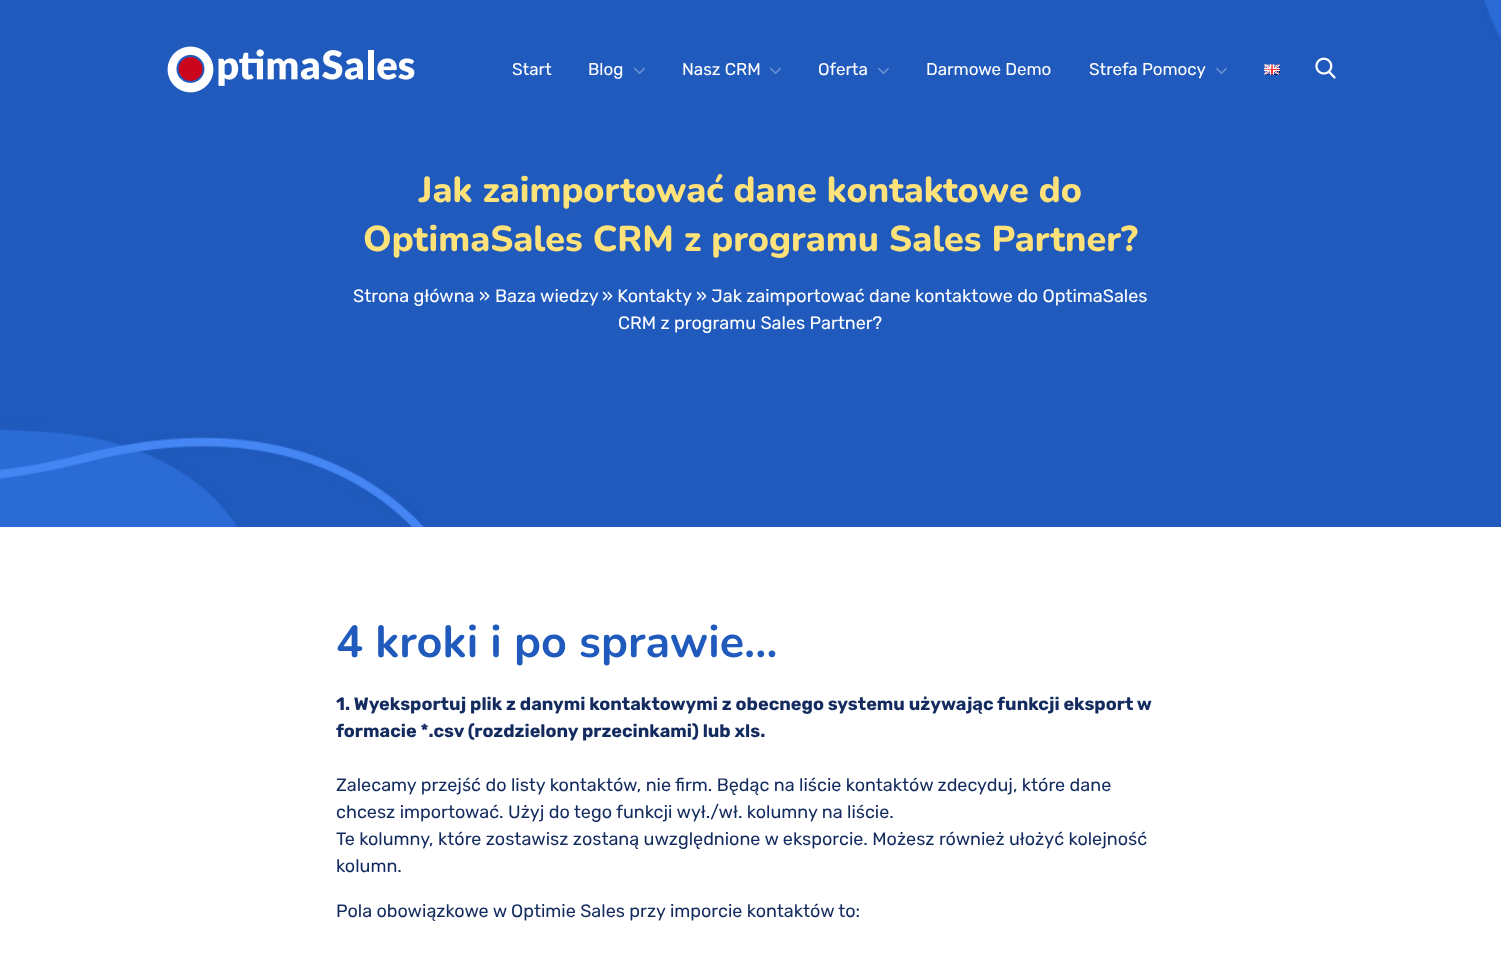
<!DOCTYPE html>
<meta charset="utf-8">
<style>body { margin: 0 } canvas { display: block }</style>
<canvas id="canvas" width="1501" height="957"></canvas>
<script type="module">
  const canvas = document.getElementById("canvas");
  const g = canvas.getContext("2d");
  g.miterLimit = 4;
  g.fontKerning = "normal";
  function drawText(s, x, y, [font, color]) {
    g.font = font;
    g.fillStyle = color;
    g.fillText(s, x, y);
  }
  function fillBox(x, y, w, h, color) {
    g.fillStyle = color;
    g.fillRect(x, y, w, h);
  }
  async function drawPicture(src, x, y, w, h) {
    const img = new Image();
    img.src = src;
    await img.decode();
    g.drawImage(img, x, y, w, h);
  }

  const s1 = ["17px Rubik", "#FFFFFF"];
  const s2 = ["800 36px Nunito", "#FFE27A"];
  const s3 = ["18px Rubik", "#FFFFFF"];
  const s4 = ["bold 45px Nunito", "#1F5ABC"];
  const s5 = ["bold 18px Rubik", "#142B5F"];
  const s6 = ["18px Rubik", "#142B5F"];

  fillBox(0, 0, 1501, 957, "#FFFFFF");
  await drawPicture("pic1.png", 0, 0, 1501, 527);
  await drawPicture("pic2.png", 167, 46, 248, 47);
  drawText("Start", 512, 75, s1);
  drawText("Blog", 588, 75, s1);
  await drawPicture("pic3.png", 634, 67, 11, 7);
  drawText("Nasz CRM", 682, 75, s1);
  await drawPicture("pic3.png", 770, 67, 11, 7);
  drawText("Oferta", 818, 75, s1);
  await drawPicture("pic3.png", 878, 67, 11, 7);
  drawText("Darmowe Demo", 926, 75, s1);
  drawText("Strefa Pomocy", 1089, 75, s1);
  await drawPicture("pic3.png", 1216, 67, 11, 7);
  await drawPicture("pic4.png", 1264, 64, 16, 11);
  await drawPicture("pic5.png", 1315, 57, 21, 22);
  drawText("Jak zaimportować dane kontaktowe do", 419, 202, s2);
  drawText("OptimaSales CRM z programu Sales Partner?", 363, 251, s2);
  drawText("Strona główna »", 353, 302, s3);
  drawText("Baza wiedzy", 495, 302, s3);
  drawText("» Kontakty", 602, 302, s3);
  drawText("» Jak zaimportować dane kontaktowe do OptimaSales", 696, 302, s3);
  drawText("CRM z programu Sales Partner?", 618, 329, s3);
  drawText("4 kroki i po sprawie…", 336, 657, s4);
  drawText("1. Wyeksportuj plik z danymi kontaktowymi z obecnego systemu używając funkcji eksport w", 336, 710, s5);
  drawText("formacie *.csv (rozdzielony przecinkami) lub xls.", 336, 737, s5);
  drawText("Zalecamy przejść do listy kontaktów, nie firm. Będąc na liście kontaktów zdecyduj, które dane", 336, 791, s6);
  drawText("chcesz importować. Użyj do tego funkcji wył./wł. kolumny na liście.", 336, 818, s6);
  drawText("Te kolumny, które zostawisz zostaną uwzględnione w eksporcie. Możesz również ułożyć kolejność", 336, 845, s6);
  drawText("kolumn.", 336, 872, s6);
  drawText("Pola obowiązkowe w Optimie Sales przy imporcie kontaktów to:", 336, 917, s6);
</script>
